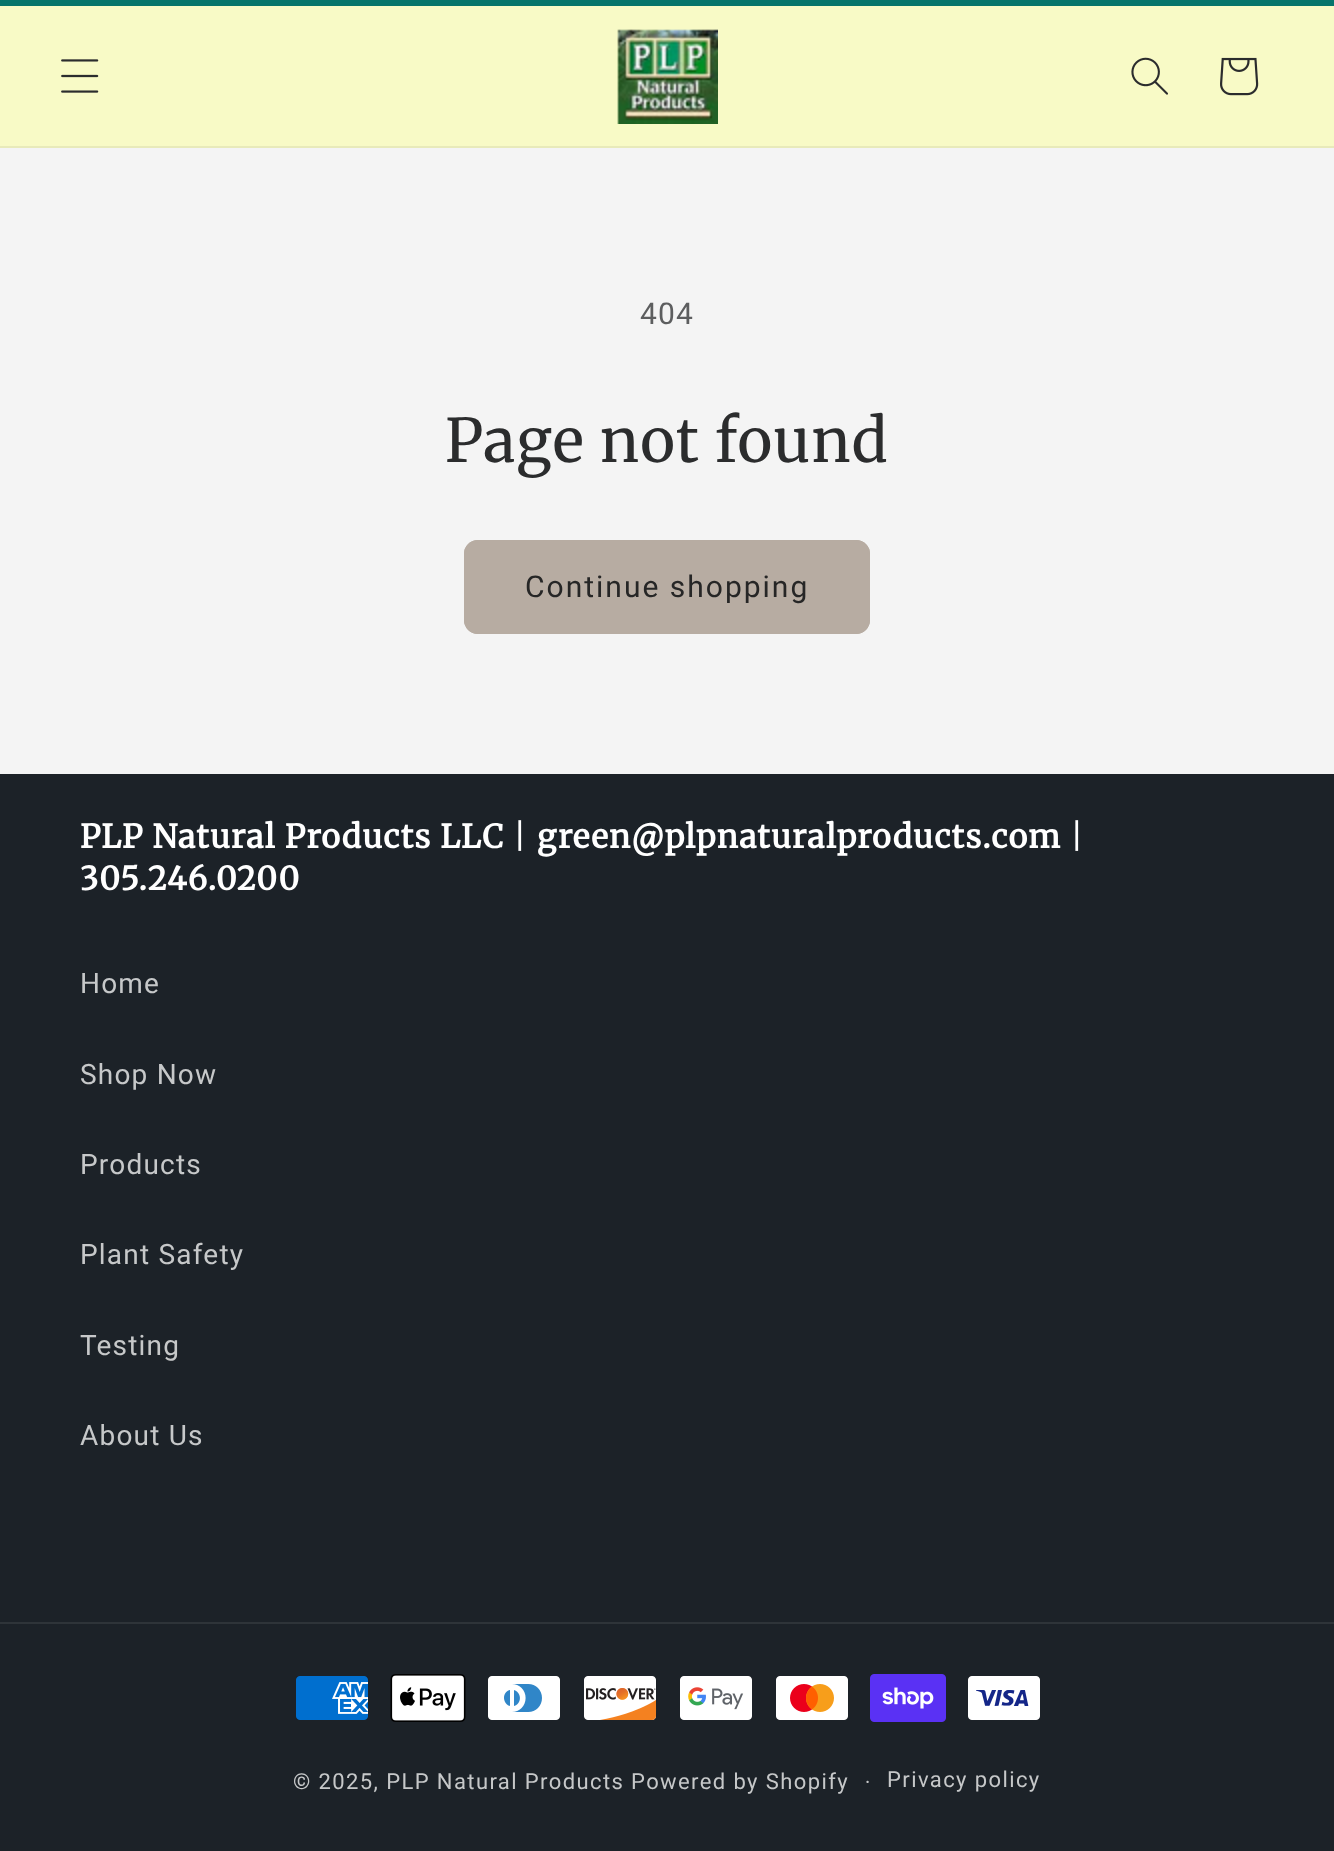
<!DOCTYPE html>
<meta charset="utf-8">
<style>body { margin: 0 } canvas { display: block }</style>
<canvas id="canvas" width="1334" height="1851"></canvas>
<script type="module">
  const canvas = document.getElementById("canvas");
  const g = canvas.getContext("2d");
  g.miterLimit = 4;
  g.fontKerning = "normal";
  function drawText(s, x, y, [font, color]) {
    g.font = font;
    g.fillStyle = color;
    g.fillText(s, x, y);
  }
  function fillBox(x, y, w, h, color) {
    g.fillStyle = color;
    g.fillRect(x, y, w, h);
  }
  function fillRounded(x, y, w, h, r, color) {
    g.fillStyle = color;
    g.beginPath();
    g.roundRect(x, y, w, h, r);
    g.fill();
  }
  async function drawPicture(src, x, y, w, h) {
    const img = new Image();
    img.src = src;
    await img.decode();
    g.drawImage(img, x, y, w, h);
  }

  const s1 = ["30px Roboto", "#5D5E5F"];
  const s2 = ["60px Merriweather", "#2B2C2D"];
  const s3 = ["30px Roboto", "#262626"];
  const s4 = ["bold 32px Merriweather", "#FFFFFF"];
  const s5 = ["32px 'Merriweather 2'", "#FFFFFF"];
  const s6 = ["28px Roboto", "#C6C8C9"];
  const s7 = ["22px Roboto", "#C6C8C9"];
  const s8 = ["20px Roboto", "#C6C8C9"];

  fillBox(0, 0, 1334, 1851, "#F4F4F4");
  fillBox(0, 0, 1334, 6, "#06746B");
  fillBox(0, 6, 1334, 140, "#F8FAC6");
  fillBox(0, 146, 1334, 2, "#E8EABA");
  await drawPicture("pic1.png", 61, 59, 38, 34);
  await drawPicture("pic2.png", 617, 29, 101, 95);
  await drawPicture("pic3.png", 1131, 57, 37, 38);
  await drawPicture("pic4.png", 1220, 57, 39, 39);
  g.letterSpacing = "1.2px";
  drawText("404", 640, 324, s1);
  drawText("Page not found", 445, 462, s2);
  fillRounded(464, 540, 406, 94, 14, "#B7ACA2");
  g.beginPath();
  g.roundRect(465, 541, 404, 92, 13);
  g.strokeStyle = "#B7ACA2";
  g.lineWidth = 2;
  g.stroke();
  g.letterSpacing = "2px";
  drawText("Continue shopping", 525, 597, s3);
  fillBox(0, 774, 1334, 1077, "#1C2228");
  g.letterSpacing = "1.2px";
  drawText("PLP Natural Products LLC", 80, 848, s4);
  drawText("|", 513, 848, s5);
  drawText("green@plpnaturalproducts.com", 537, 848, s4);
  drawText("|", 1070, 848, s5);
  drawText("305.246.0200", 80, 890, s4);
  drawText("Home", 80, 993, s6);
  drawText("Shop Now", 80, 1084, s6);
  drawText("Products", 80, 1174, s6);
  drawText("Plant Safety", 80, 1264, s6);
  drawText("Testing", 80, 1355, s6);
  drawText("About Us", 80, 1445, s6);
  fillBox(0, 1622, 1334, 2, "#2E3439");
  await drawPicture("pic5.png", 296, 1676, 72, 44);
  await drawPicture("pic6.png", 390, 1674, 76, 48);
  await drawPicture("pic7.png", 488, 1676, 72, 44);
  await drawPicture("pic8.png", 584, 1676, 73, 44);
  await drawPicture("pic9.png", 680, 1676, 72, 44);
  await drawPicture("pic10.png", 776, 1676, 72, 44);
  await drawPicture("pic11.png", 870, 1674, 76, 48);
  await drawPicture("pic12.png", 968, 1676, 72, 44);
  g.letterSpacing = "1.4px";
  drawText("© 2025, PLP Natural Products", 293, 1789, s7);
  drawText("Powered by Shopify", 631, 1789, s7);
  drawText("·", 865, 1789, s8);
  drawText("Privacy policy", 887, 1787, s7);
</script>
